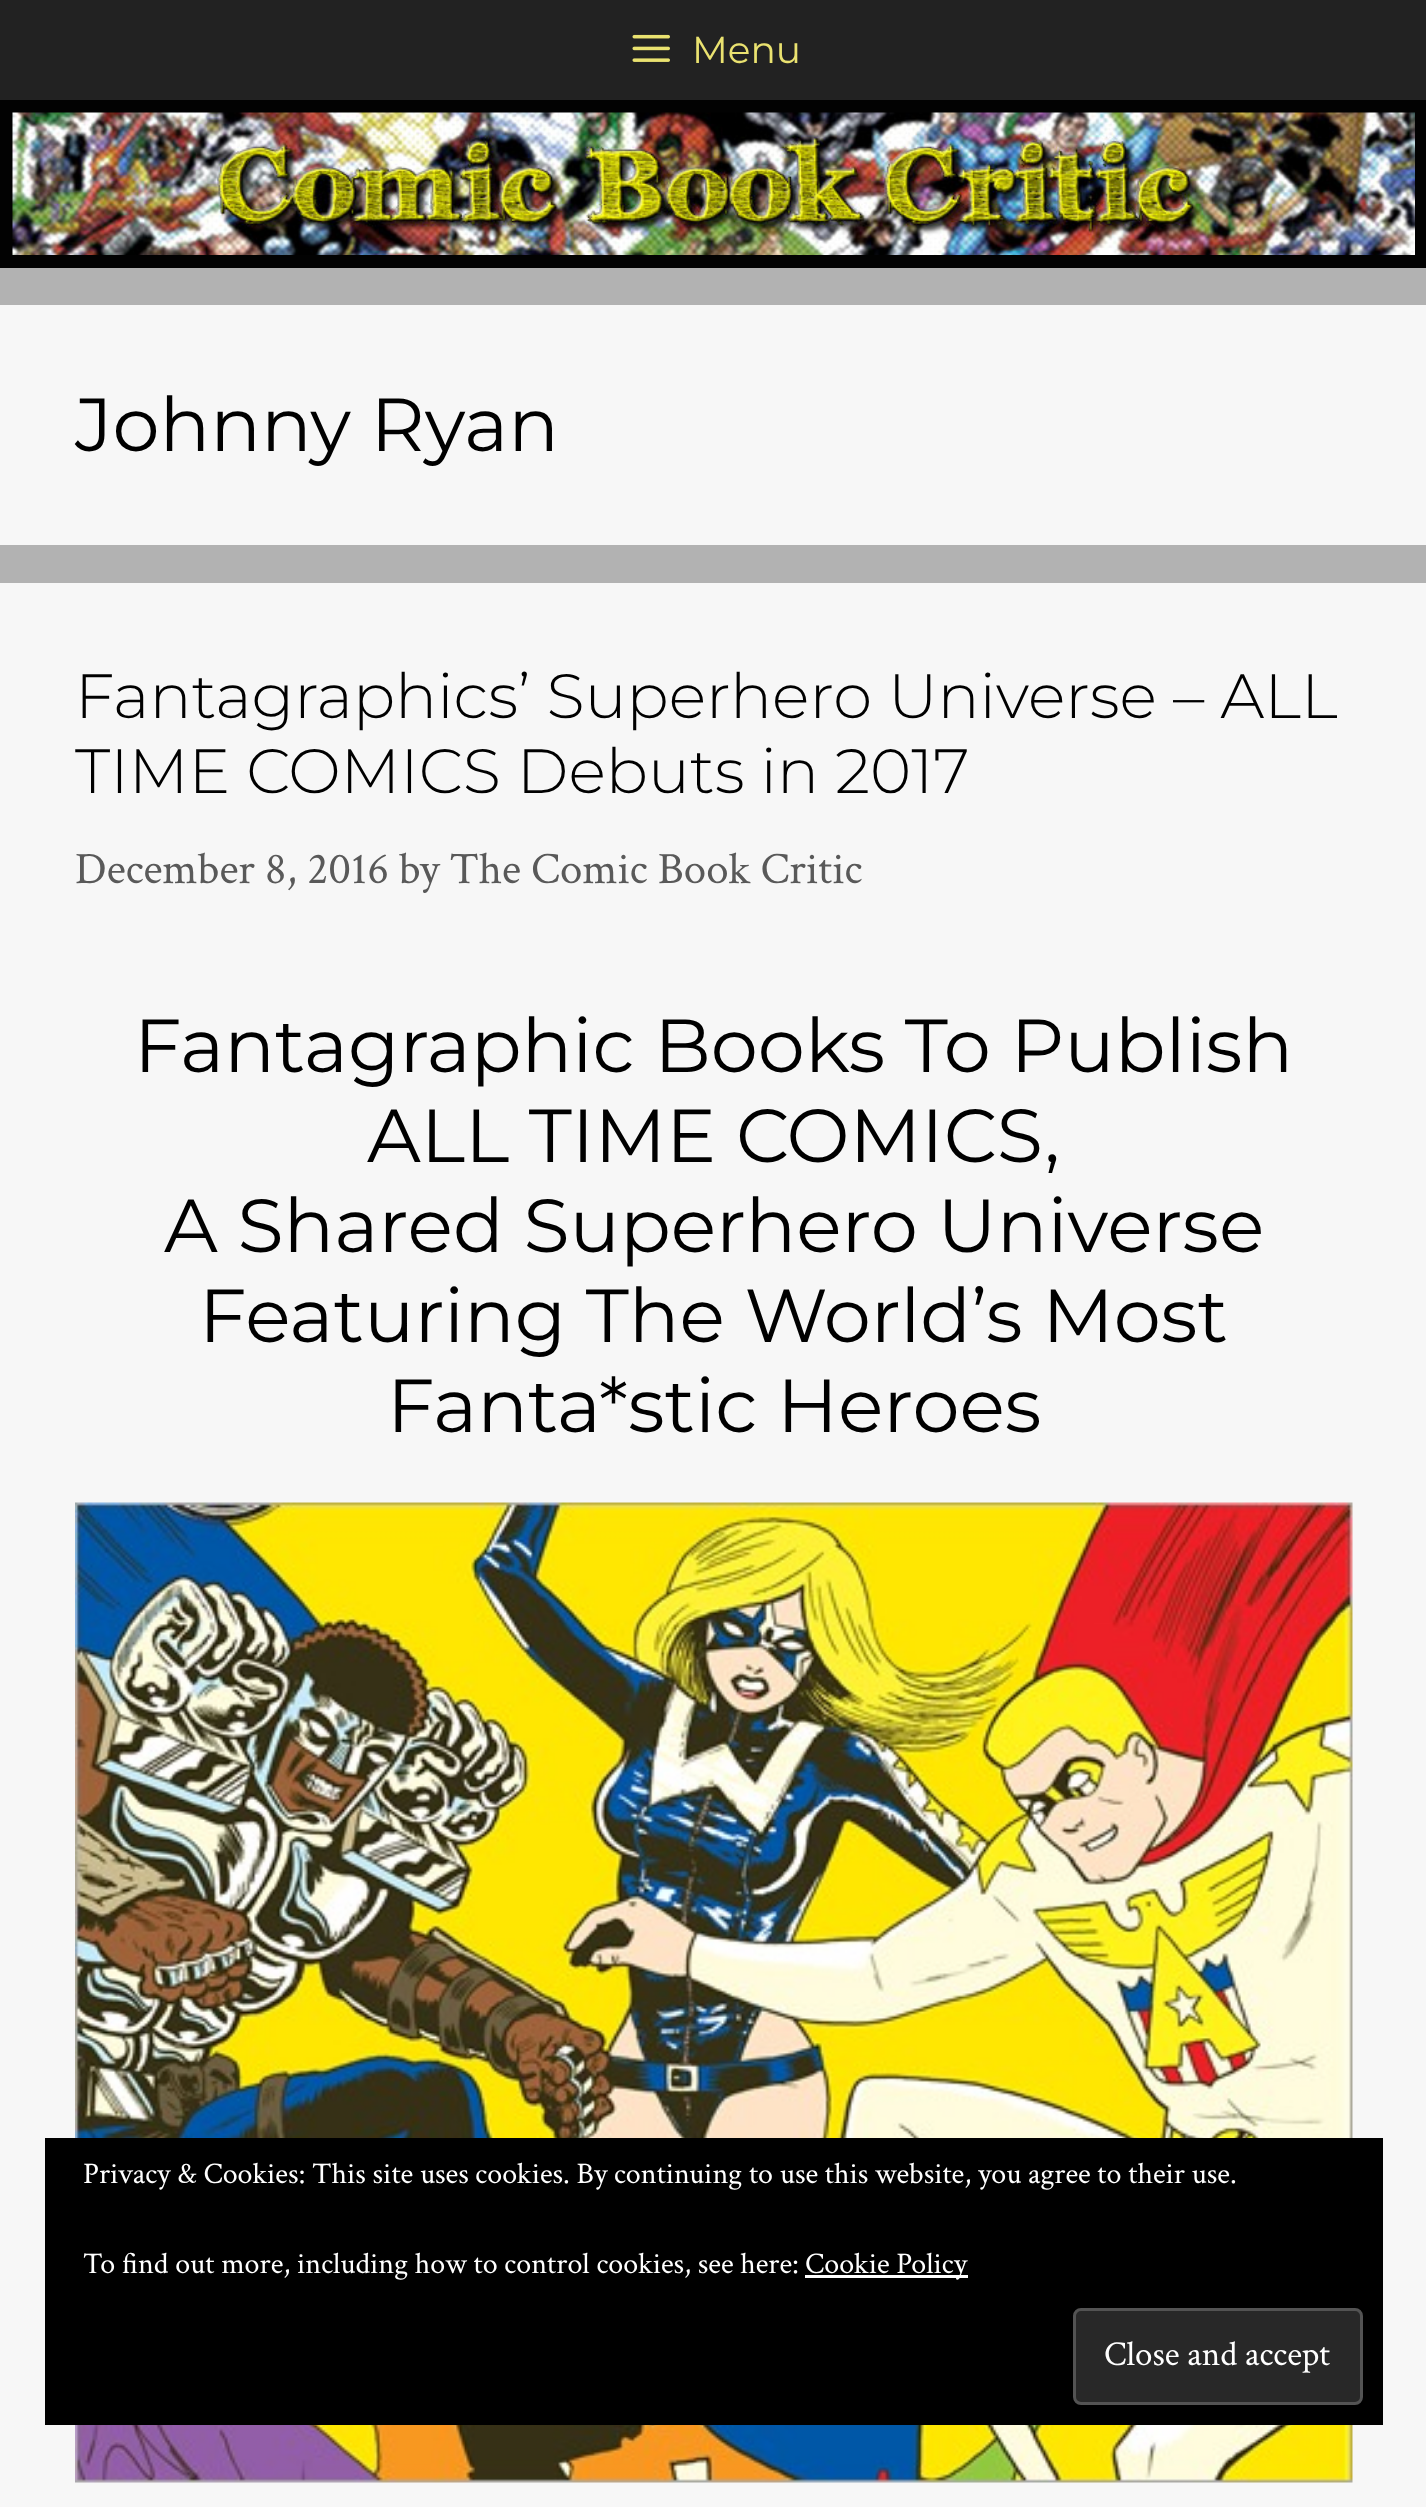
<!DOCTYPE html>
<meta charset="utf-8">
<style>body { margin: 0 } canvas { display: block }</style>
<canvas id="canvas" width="1426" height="2507"></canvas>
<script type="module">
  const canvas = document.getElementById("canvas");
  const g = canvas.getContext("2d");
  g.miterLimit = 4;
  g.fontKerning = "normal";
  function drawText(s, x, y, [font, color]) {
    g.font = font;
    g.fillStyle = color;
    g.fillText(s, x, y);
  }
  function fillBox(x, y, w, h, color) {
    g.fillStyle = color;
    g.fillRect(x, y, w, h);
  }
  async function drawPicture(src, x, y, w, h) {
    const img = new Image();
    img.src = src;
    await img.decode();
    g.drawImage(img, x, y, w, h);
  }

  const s1 = ["37.5px Montserrat", "#EAE270"];
  const s2 = ["75px Montserrat", "#000000"];
  const s3 = ["300 62.5px Montserrat", "#000000"];
  const s4 = ["45px Crimson Text", "#595959"];
  const s5 = ["30px Crimson Text", "#FFFFFF"];
  const s6 = ["35px Crimson Text", "#FFFFFF"];

  fillBox(0, 0, 1426, 2507, "#B2B2B2");
  fillBox(0, 0, 1426, 100, "#222222");
  await drawPicture("pic1.png", 632, 34, 38, 28);
  drawText("Menu", 692, 63, s1);
  fillBox(0, 100, 1426, 168, "#020202");
  await drawPicture("pic2.png", 12, 112, 1403, 143);
  fillBox(0, 305, 1426, 240, "#F7F7F7");
  drawText("Johnny Ryan", 75, 451, s2);
  fillBox(0, 583, 1426, 1924, "#F7F7F7");
  drawText("Fantagraphics’ Superhero Universe – ALL", 75, 718, s3);
  drawText("TIME COMICS Debuts in 2017", 75, 793, s3);
  drawText("December 8, 2016 by The Comic Book Critic", 75, 883, s4);
  drawText("Fantagraphic Books To Publish", 134, 1072, s2);
  drawText("ALL TIME COMICS,", 367, 1162, s2);
  drawText("A Shared Superhero Universe", 164, 1252, s2);
  drawText("Featuring The World’s Most", 199, 1342, s2);
  drawText("Fanta*stic Heroes", 387, 1432, s2);
  await drawPicture("pic3.png", 75, 1502, 1278, 981);
  fillBox(45, 2138, 1338, 287, "#000000");
  drawText("Privacy & Cookies: This site uses cookies. By continuing to use this website, you agree to their use.", 83, 2183, s5);
  drawText("To find out more, including how to control cookies, see here:", 83, 2273, s5);
  fillBox(805, 2275, 163, 3, "#FFFFFF");
  drawText("Cookie Policy", 805, 2273, s5);
  g.fillStyle = "#282828";
  g.beginPath();
  g.roundRect(1074.5, 2309.5, 287, 94, 6.5);
  g.fill();
  g.strokeStyle = "#535353";
  g.lineWidth = 3;
  g.stroke();
  drawText("Close and accept", 1104, 2365, s6);
</script>
